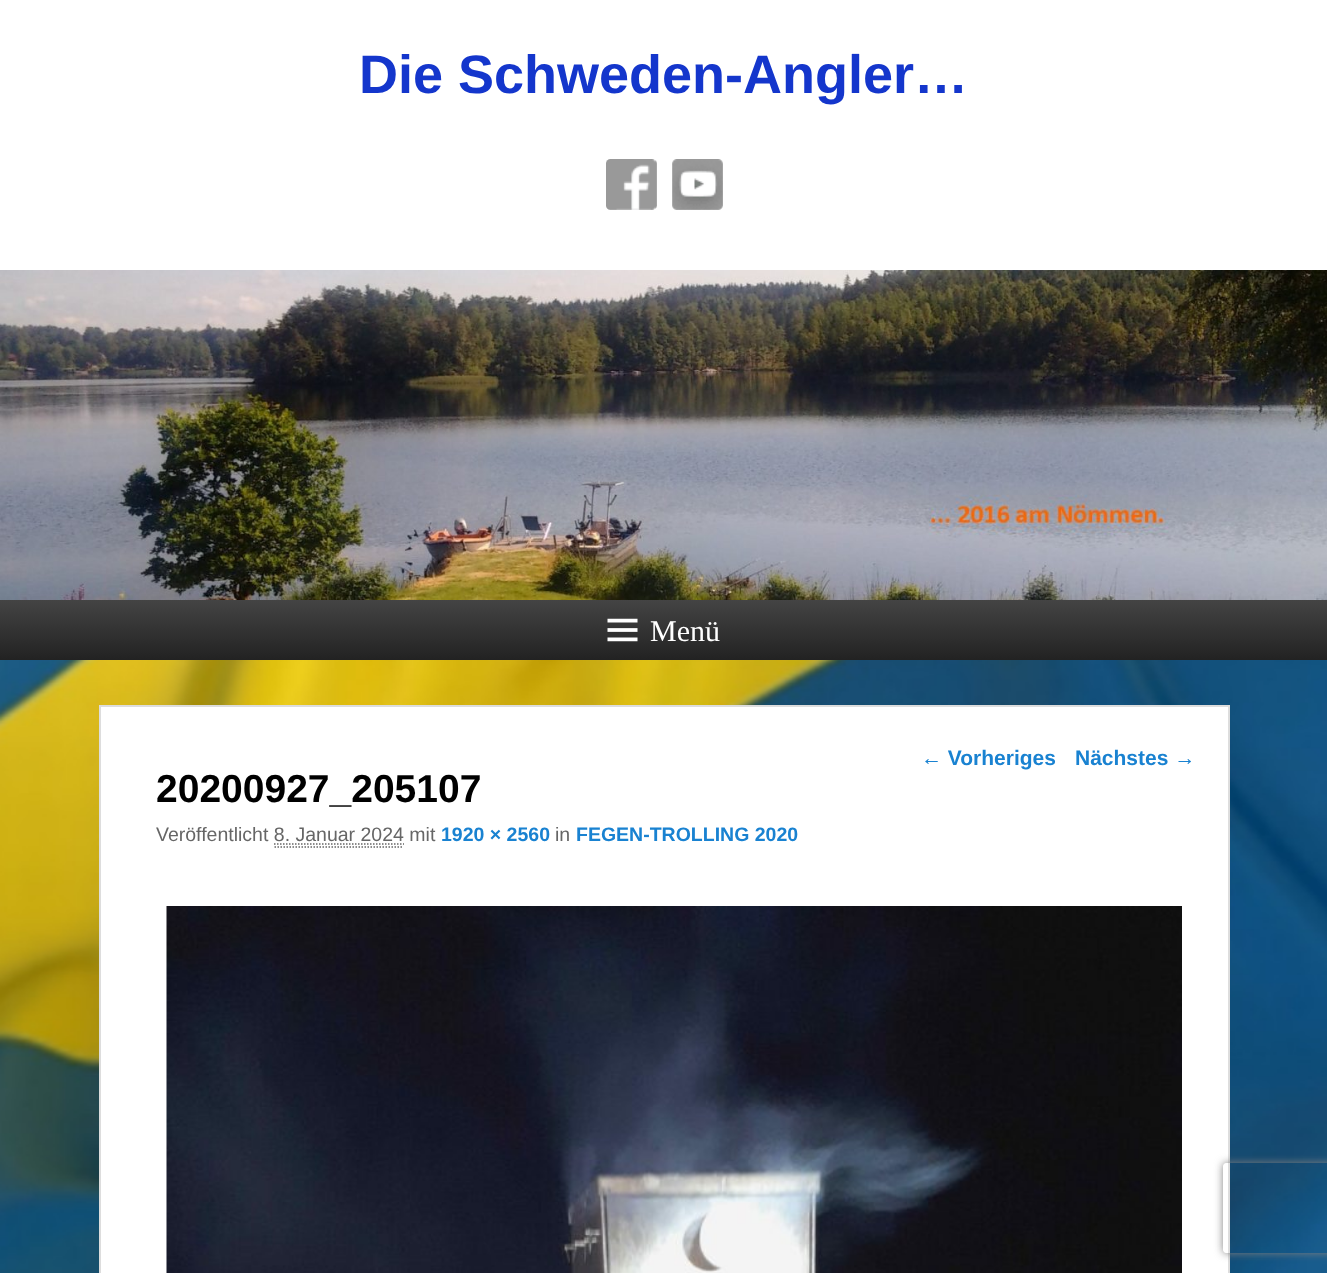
<!DOCTYPE html>
<meta charset="utf-8">
<style>body { margin: 0 } canvas { display: block }</style>
<canvas id="canvas" width="1327" height="1273"></canvas>
<script type="module">
  const canvas = document.getElementById("canvas");
  const g = canvas.getContext("2d");
  g.miterLimit = 4;
  g.fontKerning = "normal";
  function drawText(s, x, y, [font, color]) {
    g.font = font;
    g.fillStyle = color;
    g.fillText(s, x, y);
  }
  function fillBox(x, y, w, h, color) {
    g.fillStyle = color;
    g.fillRect(x, y, w, h);
  }
  async function drawPicture(src, x, y, w, h) {
    const img = new Image();
    img.src = src;
    await img.decode();
    g.drawImage(img, x, y, w, h);
  }
  let gradient;

  const s1 = ["bold 54px Liberation Sans", "#1436CC"];
  const s2 = ["30px Liberation Serif", "#FFFFFF"];
  const s3 = ["bold 21px Liberation Sans", "#1982D1"];
  const s4 = ["bold 39px Liberation Sans", "#000000"];
  const s5 = ["19.5px Liberation Sans", "#666666"];
  const s6 = ["bold 19.5px Liberation Sans", "#1982D1"];

  fillBox(0, 0, 1327, 1273, "#FFFFFF");
  await drawPicture("pic1.png", 0, 660, 1327, 613);
  drawText("Die Schweden-Angler…", 359, 93, s1);
  await drawPicture("pic2.png", 606, 159, 51, 51);
  await drawPicture("pic3.png", 672, 159, 51, 51);
  await drawPicture("pic4.png", 0, 270, 1327, 330);
  gradient = g.createLinearGradient(664, 600, 664, 660);
  gradient.addColorStop(0, "#444444");
  gradient.addColorStop(1, "#222222");
  g.fillStyle = gradient;
  g.fillRect(0, 600, 1327, 60);
  await drawPicture("pic5.png", 607, 618, 31, 24);
  drawText("Menü", 650, 641, s2);
  g.beginPath();
  g.rect(100, 706, 1129, 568);
  g.fill();
  g.strokeStyle = "#DDDDDD";
  g.lineWidth = 2;
  g.stroke();
  drawText("← Vorheriges", 921, 765, s3);
  drawText("Nächstes →", 1075, 765, s3);
  drawText("20200927_205107", 156, 802, s4);
  drawText("Veröffentlicht 8. Januar 2024 mit", 156, 841, s5);
  drawText("1920 × 2560", 441, 841, s6);
  drawText("in", 555, 841, s5);
  drawText("FEGEN-TROLLING 2020", 576, 841, s6);
  g.beginPath();
  g.moveTo(274, 844);
  g.lineTo(404, 844);
  g.strokeStyle = "#666666";
  g.lineWidth = 1.5;
  g.setLineDash([1.5, 1.5]);
  g.stroke();
  g.beginPath();
  g.moveTo(274.5, 847);
  g.lineTo(403.5, 847);
  g.stroke();
  await drawPicture("pic6.png", 166, 906, 1016, 367);
  g.save();
  g.beginPath();
  g.moveTo(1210, 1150);
  g.lineTo(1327, 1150);
  g.lineTo(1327, 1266);
  g.lineTo(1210, 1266);
  g.closePath();
  g.moveTo(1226, 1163);
  g.lineTo(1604, 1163);
  g.bezierCurveTo(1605.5, 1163, 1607, 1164.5, 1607, 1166);
  g.lineTo(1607, 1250);
  g.bezierCurveTo(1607, 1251.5, 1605.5, 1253, 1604, 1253);
  g.lineTo(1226, 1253);
  g.bezierCurveTo(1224.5, 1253, 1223, 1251.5, 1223, 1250);
  g.lineTo(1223, 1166);
  g.bezierCurveTo(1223, 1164.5, 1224.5, 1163, 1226, 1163);
  g.closePath();
  g.clip("evenodd");
  g.fillStyle = "#808080";
  g.filter = "blur(4px)";
  g.beginPath();
  g.roundRect(1223, 1163, 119, 90, 3);
  g.fill();
  g.filter = "none";
  g.restore();
</script>
